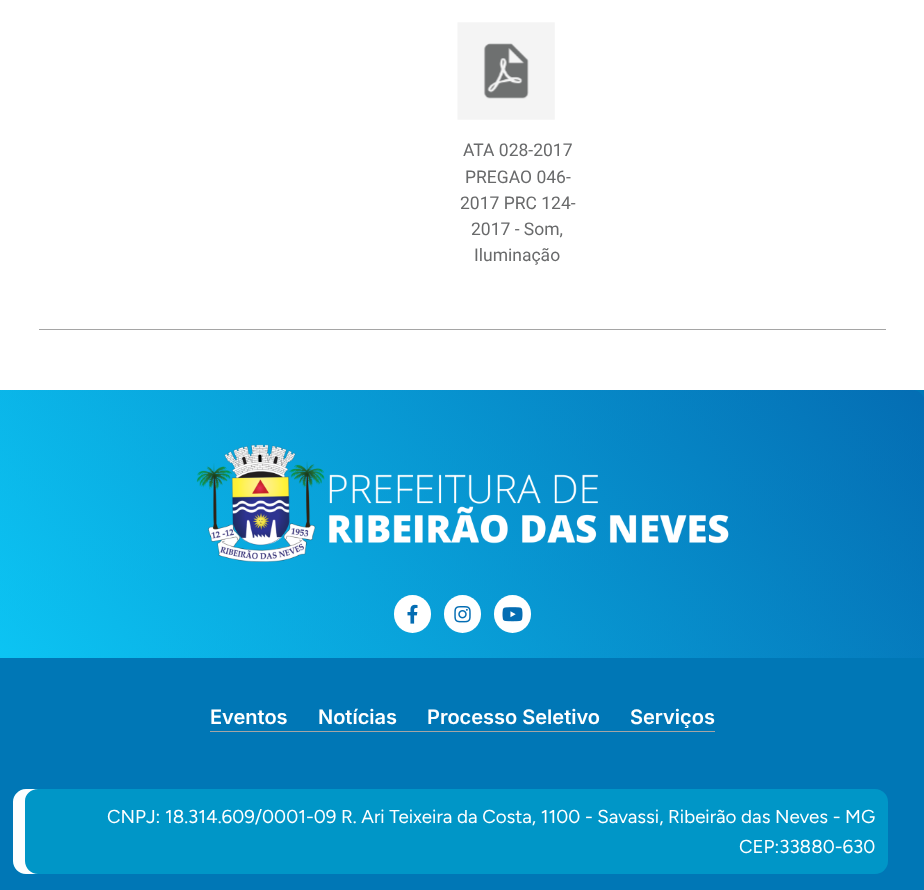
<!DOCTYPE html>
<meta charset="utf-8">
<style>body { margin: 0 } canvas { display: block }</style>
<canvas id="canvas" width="924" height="890"></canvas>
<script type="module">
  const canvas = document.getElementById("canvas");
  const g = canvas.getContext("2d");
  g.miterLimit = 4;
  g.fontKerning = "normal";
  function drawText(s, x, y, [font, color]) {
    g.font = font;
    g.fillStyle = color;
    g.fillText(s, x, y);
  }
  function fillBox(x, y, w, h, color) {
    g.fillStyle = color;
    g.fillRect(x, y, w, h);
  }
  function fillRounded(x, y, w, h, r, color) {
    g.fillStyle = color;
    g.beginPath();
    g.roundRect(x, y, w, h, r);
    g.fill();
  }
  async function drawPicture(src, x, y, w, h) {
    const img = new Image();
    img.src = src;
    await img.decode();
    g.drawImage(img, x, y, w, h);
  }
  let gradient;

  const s1 = ["17.5px Roboto", "#696A6B"];
  const s2 = ["600 20px Inter", "#FFFFFF"];
  const s3 = ["18.75px Figtree", "#FFFFFF"];

  fillBox(0, 0, 924, 890, "#FFFFFF");
  await drawPicture("pic1.png", 457, 22, 98, 98);
  drawText("ATA 028-2017", 463, 156, s1);
  drawText("PREGAO 046-", 465, 183, s1);
  drawText("2017 PRC 124-", 460, 209, s1);
  drawText("2017 - Som,", 471, 235, s1);
  drawText("Iluminação", 474, 261, s1);
  fillBox(39, 329, 847, 1, "#A5A5A5");
  fillBox(0, 390, 924, 500, "#0077B6");
  gradient = g.createLinearGradient(118, 803, 807, 245);
  gradient.addColorStop(0, "#0CC4F3");
  gradient.addColorStop(1, "#046DB3");
  g.fillStyle = gradient;
  g.beginPath();
  g.moveTo(0, 390);
  g.lineTo(912, 390);
  g.bezierCurveTo(919, 390, 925, 396, 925, 403);
  g.lineTo(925, 658);
  g.lineTo(0, 658);
  g.closePath();
  g.fill();
  gradient = g.createLinearGradient(879, 303, 46, 745);
  gradient.addColorStop(0, "rgba(4, 109, 179, 0.5)");
  gradient.addColorStop(1, "rgba(12, 196, 243, 0.5)");
  g.fillStyle = gradient;
  g.beginPath();
  g.moveTo(0, 390);
  g.lineTo(912, 390);
  g.bezierCurveTo(919, 390, 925, 396, 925, 403);
  g.lineTo(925, 658);
  g.lineTo(0, 658);
  g.closePath();
  g.fill();
  await drawPicture("pic2.png", 196, 444, 533, 118);
  fillRounded(394, 595, 37, 38, 18.5, "#FFFFFF");
  await drawPicture("pic3.png", 407, 604, 11, 20);
  fillRounded(444, 595, 37, 38, 18.5, "#FFFFFF");
  await drawPicture("pic4.png", 454, 606, 17, 17);
  fillRounded(494, 595, 37, 38, 18.5, "#FFFFFF");
  await drawPicture("pic5.png", 502, 607, 21, 15);
  fillBox(210, 731, 505, 1, "#A5A5A5");
  drawText("Eventos", 210, 724, s2);
  drawText("Notícias", 318, 724, s2);
  drawText("Processo Seletivo", 427, 724, s2);
  drawText("Serviços", 630, 724, s2);
  fillRounded(13, 789, 875, 85, 13, "#0096C7");
  g.fillStyle = "#FCFEFF";
  g.beginPath();
  g.moveTo(26, 789);
  g.bezierCurveTo(19, 789, 13, 795, 13, 802);
  g.lineTo(13, 861);
  g.bezierCurveTo(13, 868, 19, 874, 26, 874);
  g.lineTo(38, 874);
  g.bezierCurveTo(31, 874, 25, 868, 25, 861);
  g.lineTo(25, 801);
  g.bezierCurveTo(25, 794, 31, 789, 38, 789);
  g.closePath();
  g.fill();
  drawText("CNPJ: 18.314.609/0001-09 R. Ari Teixeira da Costa, 1100 - Savassi, Ribeirão das Neves - MG", 107, 823, s3);
  drawText("CEP:33880-630", 739, 853, s3);
</script>
